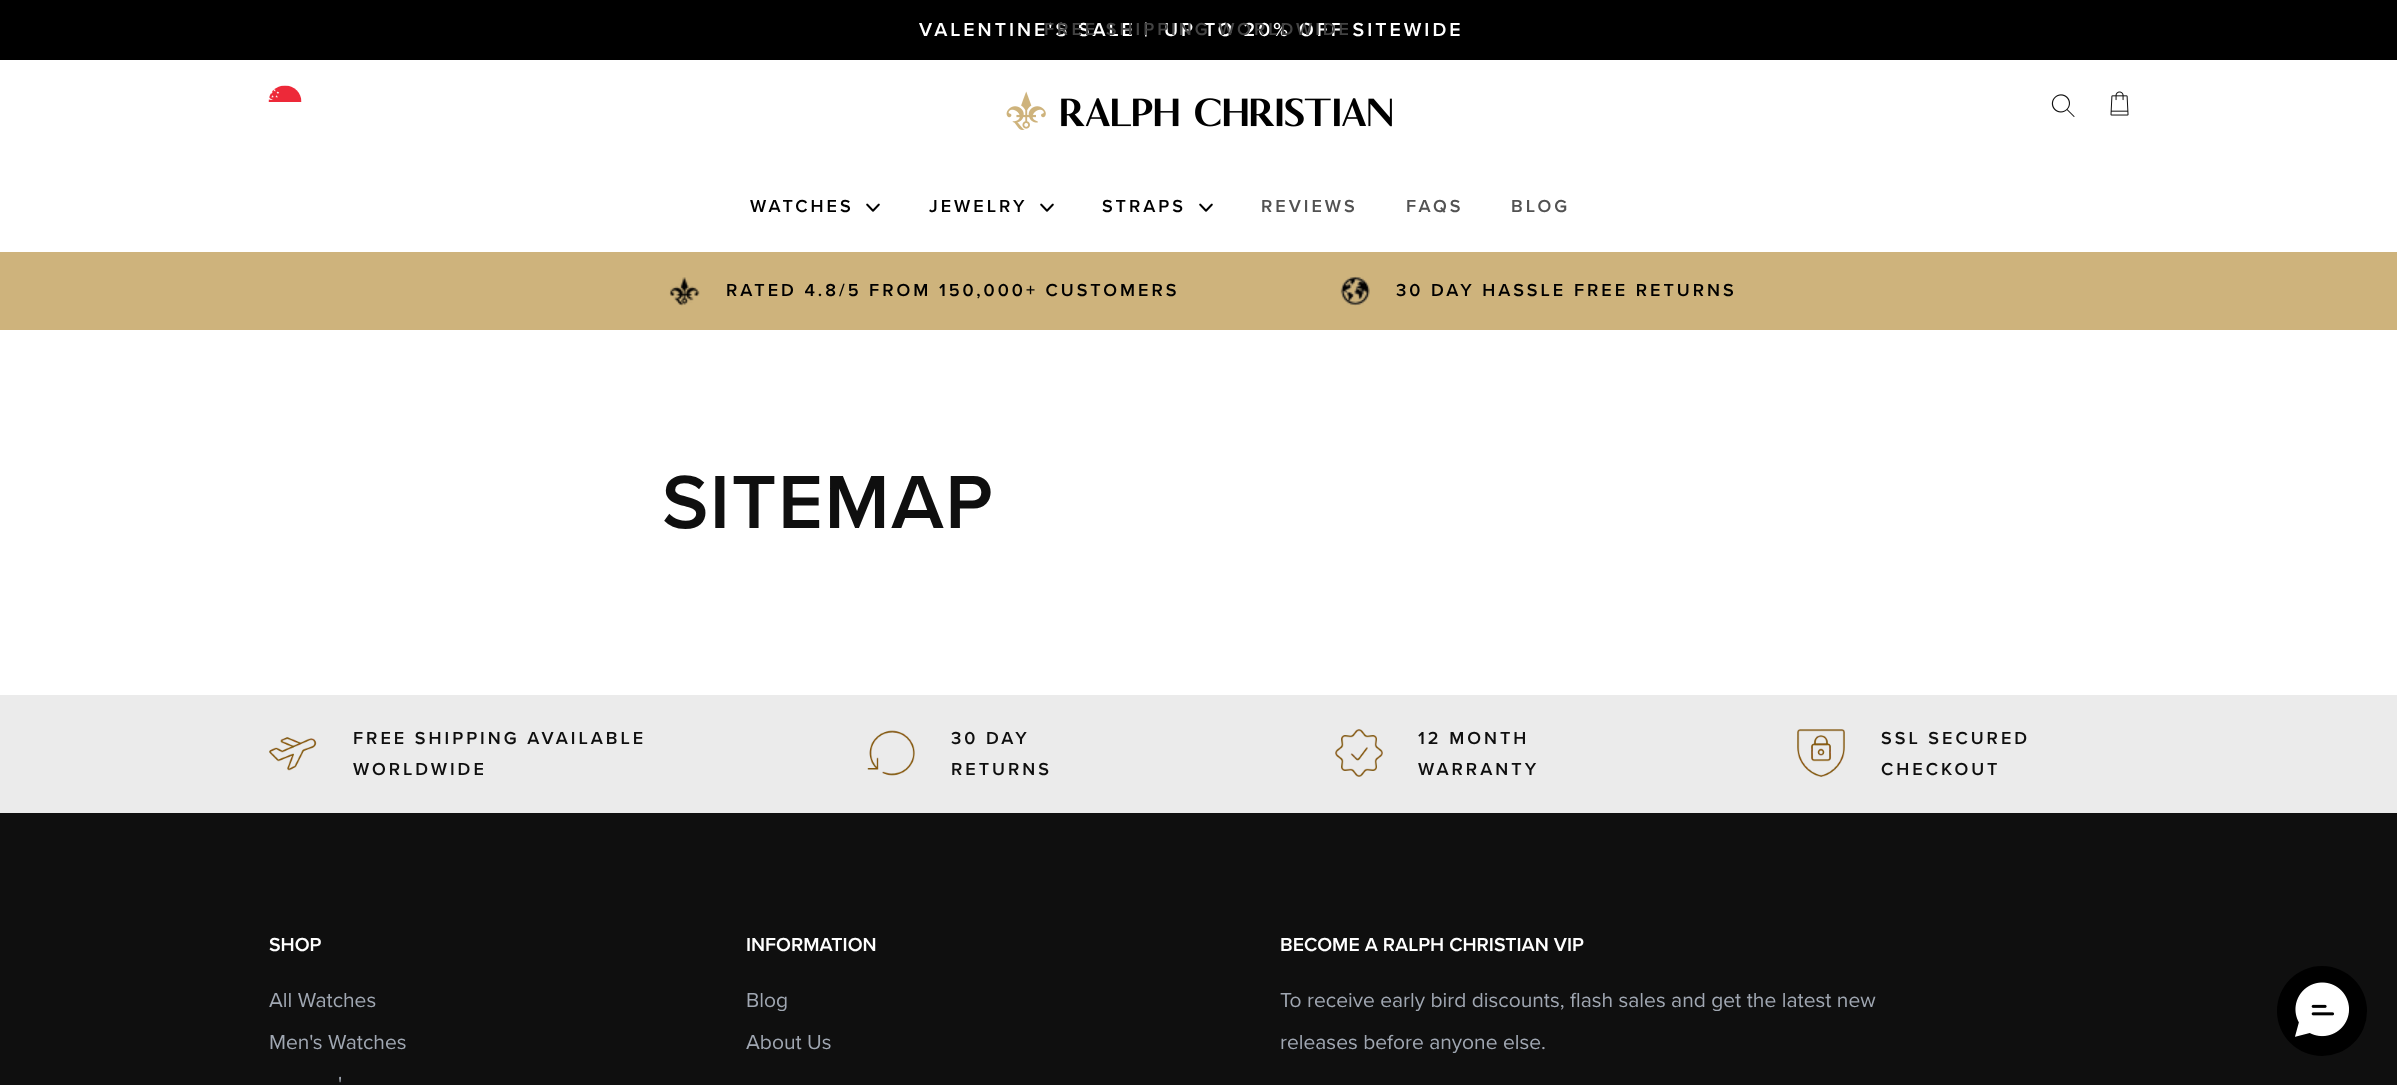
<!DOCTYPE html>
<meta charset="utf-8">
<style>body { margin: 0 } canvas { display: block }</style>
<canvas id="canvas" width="2397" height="1085"></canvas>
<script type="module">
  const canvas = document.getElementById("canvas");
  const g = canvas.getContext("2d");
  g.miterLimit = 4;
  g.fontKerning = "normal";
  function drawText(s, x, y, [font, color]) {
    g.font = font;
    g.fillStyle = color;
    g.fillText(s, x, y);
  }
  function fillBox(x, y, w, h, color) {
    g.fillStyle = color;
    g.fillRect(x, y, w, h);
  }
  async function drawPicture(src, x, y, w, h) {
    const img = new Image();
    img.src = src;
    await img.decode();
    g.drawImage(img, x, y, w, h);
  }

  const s1 = ["600 19.5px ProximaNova", "#FFFFFF"];
  const s2 = ["600 18px ProximaNova", "#434343"];
  const s3 = ["600 18px ProximaNova", "#000000"];
  const s4 = ["600 18px ProximaNova", "#525252"];
  const s5 = ["600 78px ProximaNova", "#0F0F0F"];
  const s6 = ["600 18px ProximaNova", "#0F0F0F"];
  const s7 = ["21px ProximaNova", "#A0A7B2"];

  fillBox(0, 0, 2397, 1085, "#FFFFFF");
  fillBox(0, 0, 2397, 60, "#000000");
  g.letterSpacing = "3px";
  drawText("VALENTINE'S SALE |", 919, 36, s1);
  drawText("UP TO 20% OFF SITEWIDE", 1164, 36, s1);
  drawText("FREE SHIPPING WORLDWIDE", 1044, 35, s2);
  await drawPicture("pic1.png", 268, 85, 34, 17);
  await drawPicture("pic2.png", 1006, 91, 386, 39);
  await drawPicture("pic3.png", 2051, 94, 24, 23);
  await drawPicture("pic4.png", 2110, 91, 19, 25);
  drawText("WATCHES", 750, 212, s3);
  await drawPicture("pic5.png", 866, 203, 14, 9);
  drawText("JEWELRY", 929, 212, s3);
  await drawPicture("pic5.png", 1040, 203, 14, 9);
  drawText("STRAPS", 1102, 212, s3);
  await drawPicture("pic5.png", 1199, 203, 14, 9);
  drawText("REVIEWS", 1261, 212, s4);
  drawText("FAQS", 1406, 212, s4);
  drawText("BLOG", 1511, 212, s4);
  fillBox(0, 252, 2397, 78, "#CEB37C");
  await drawPicture("pic6.png", 669, 277, 31, 29);
  drawText("RATED 4.8/5 FROM 150,000+ CUSTOMERS", 726, 296, s3);
  await drawPicture("pic7.png", 1340, 276, 30, 30);
  drawText("30 DAY HASSLE FREE RETURNS", 1396, 296, s3);
  g.letterSpacing = "1.5px";
  drawText("SITEMAP", 662, 528, s5);
  fillBox(0, 695, 2397, 118, "#EBEBEB");
  await drawPicture("pic8.png", 269, 737, 48, 34);
  g.letterSpacing = "3px";
  drawText("FREE SHIPPING AVAILABLE", 353, 744, s6);
  drawText("WORLDWIDE", 353, 775, s6);
  await drawPicture("pic9.png", 867, 730, 48, 46);
  drawText("30 DAY", 951, 744, s6);
  drawText("RETURNS", 951, 775, s6);
  await drawPicture("pic10.png", 1335, 729, 48, 48);
  drawText("12 MONTH", 1418, 744, s6);
  drawText("WARRANTY", 1418, 775, s6);
  await drawPicture("pic11.png", 1797, 729, 48, 48);
  drawText("SSL SECURED", 1881, 744, s6);
  drawText("CHECKOUT", 1881, 775, s6);
  fillBox(0, 813, 2397, 272, "#0F0F0F");
  g.letterSpacing = "0px";
  drawText("SHOP", 269, 951, s1);
  drawText("All Watches", 269, 1007, s7);
  drawText("Men's Watches", 269, 1049, s7);
  drawText("'", 338, 1091, s7);
  drawText("INFORMATION", 746, 951, s1);
  drawText("Blog", 746, 1007, s7);
  drawText("About Us", 746, 1049, s7);
  drawText("BECOME A RALPH CHRISTIAN VIP", 1280, 951, s1);
  drawText("To receive early bird discounts, flash sales and get the latest new", 1280, 1007, s7);
  drawText("releases before anyone else.", 1280, 1049, s7);
  g.fillStyle = "#000000";
  g.beginPath();
  g.arc(2322, 1011, 45, 0, Math.PI * 2);
  g.fill();
  await drawPicture("pic12.png", 2295, 982, 54, 55);
</script>
